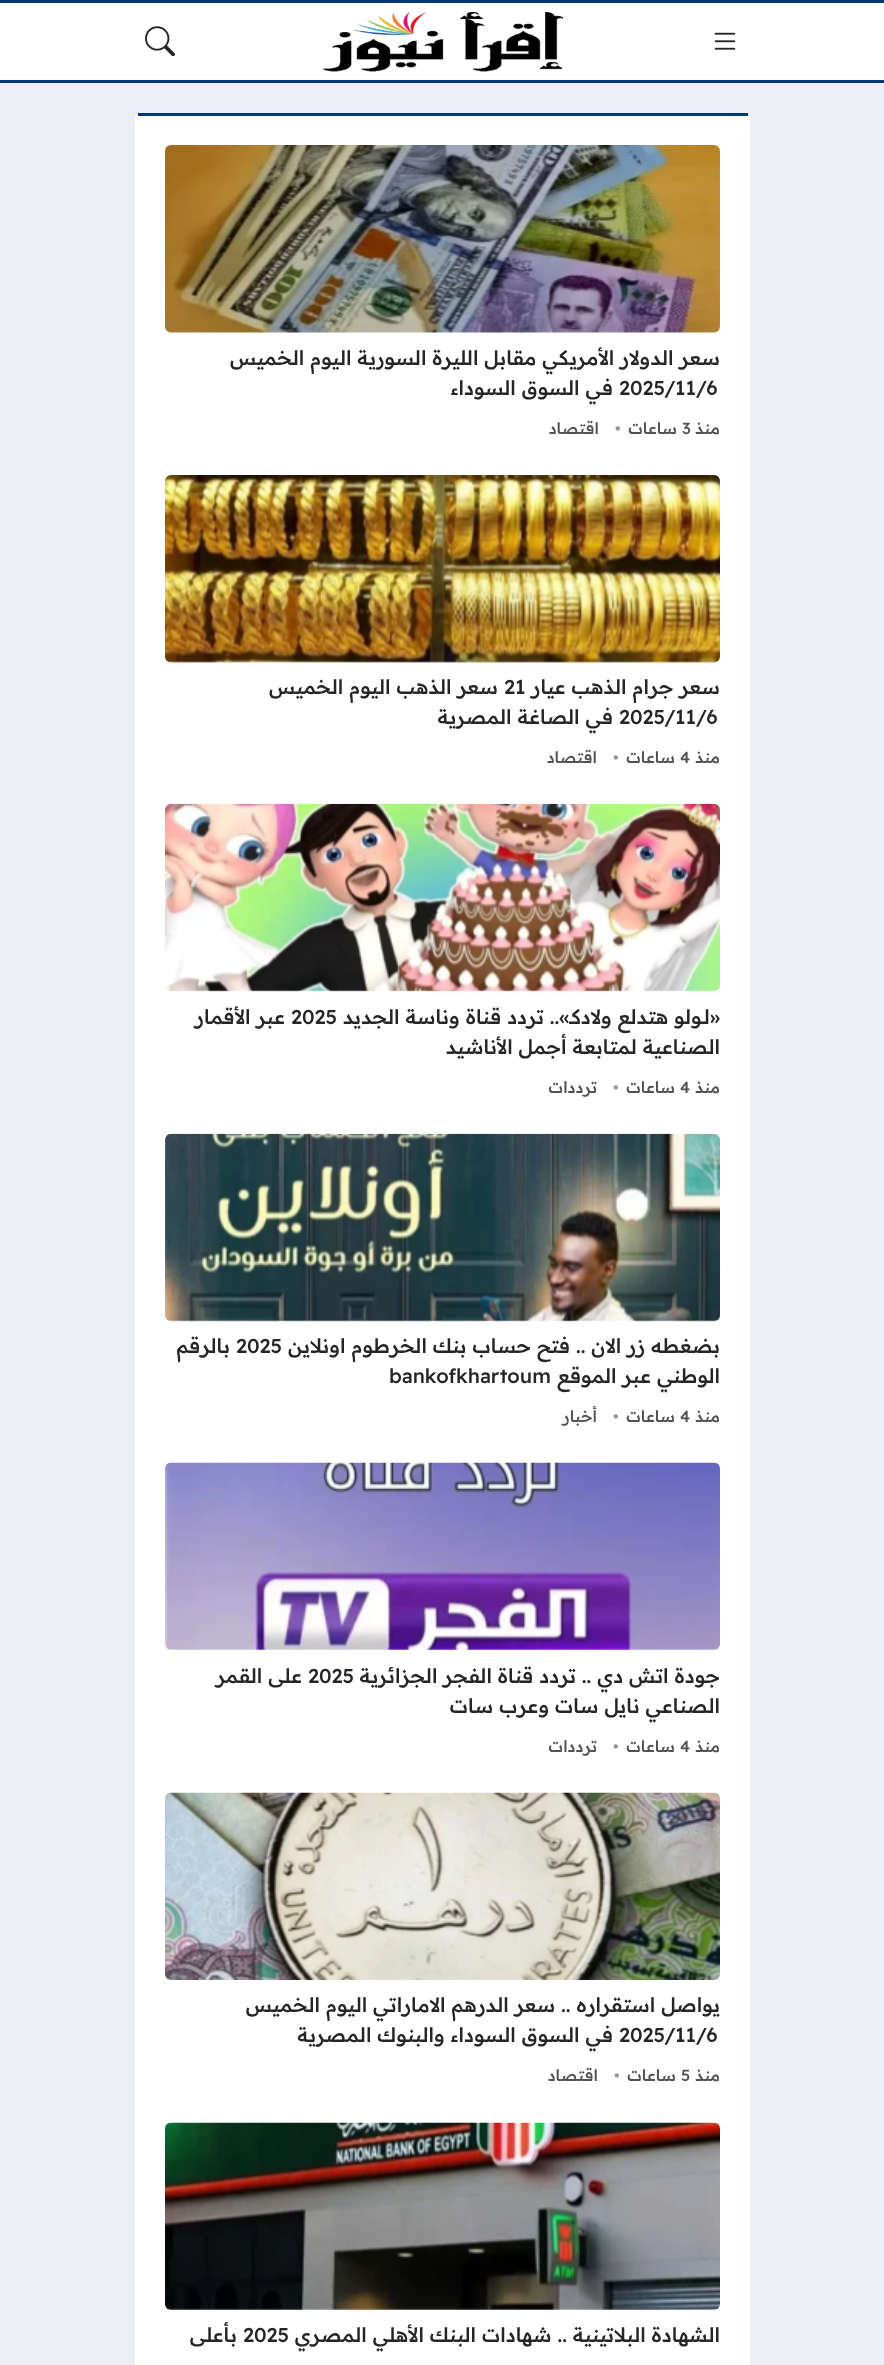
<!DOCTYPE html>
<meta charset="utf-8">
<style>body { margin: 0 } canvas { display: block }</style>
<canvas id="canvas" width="884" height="2365"></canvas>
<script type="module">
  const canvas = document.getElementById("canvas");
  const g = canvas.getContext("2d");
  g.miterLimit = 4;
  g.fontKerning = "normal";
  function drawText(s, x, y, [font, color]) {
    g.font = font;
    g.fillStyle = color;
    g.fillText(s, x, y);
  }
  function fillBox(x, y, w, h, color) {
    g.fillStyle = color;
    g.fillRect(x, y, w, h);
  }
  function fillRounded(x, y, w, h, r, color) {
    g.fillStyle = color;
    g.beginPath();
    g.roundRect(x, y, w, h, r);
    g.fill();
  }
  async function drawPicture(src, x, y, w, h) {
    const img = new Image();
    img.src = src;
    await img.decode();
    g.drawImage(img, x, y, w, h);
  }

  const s1 = ["500 20px Readex Pro", "#242526"];
  const s2 = ["500 16px Readex Pro", "#505151"];
  const s3 = ["500 16px Readex Pro", "#969697"];

  fillBox(0, 0, 884, 2365, "#EDEEF3");
  fillBox(0, 0, 884, 3, "#043775");
  fillBox(0, 80, 884, 3, "#043775");
  fillBox(0, 3, 884, 77, "#FFFFFF");
  await drawPicture("pic1.png", 714, 32, 22, 18);
  await drawPicture("pic2.png", 323, 12, 240, 60);
  await drawPicture("pic3.png", 145, 26, 30, 30);
  fillRounded(135, 113, 615, 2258, 6, "#FFFFFF");
  fillBox(138, 113, 610, 3, "#043775");
  await drawPicture("pic4.png", 165, 145, 555, 188);
  g.direction = "rtl";
  drawText("سعر الدولار الأمريكي مقابل الليرة السورية اليوم الخميس", 720, 365, s1);
  g.direction = "ltr";
  drawText("2025/11/6", 619, 395, s1);
  g.direction = "rtl";
  drawText("في السوق السوداء", 613, 395, s1);
  drawText("منذ", 720, 434, s2);
  g.direction = "ltr";
  drawText("3", 682, 434, s2);
  g.direction = "rtl";
  drawText("ساعات", 677, 434, s2);
  g.direction = "ltr";
  drawText("•", 615, 434, s3);
  g.direction = "rtl";
  drawText("اقتصاد", 599, 434, s2);
  await drawPicture("pic5.png", 165, 475, 555, 188);
  drawText("سعر جرام الذهب عيار", 720, 694, s1);
  g.direction = "ltr";
  drawText("21", 504, 694, s1);
  g.direction = "rtl";
  drawText("سعر الذهب اليوم الخميس", 498, 694, s1);
  g.direction = "ltr";
  drawText("2025/11/6", 619, 724, s1);
  g.direction = "rtl";
  drawText("في الصاغة المصرية", 613, 724, s1);
  drawText("منذ", 720, 763, s2);
  g.direction = "ltr";
  drawText("4", 680, 763, s2);
  g.direction = "rtl";
  drawText("ساعات", 675, 763, s2);
  g.direction = "ltr";
  drawText("•", 613, 763, s3);
  g.direction = "rtl";
  drawText("اقتصاد", 597, 763, s2);
  await drawPicture("pic6.png", 165, 803, 555, 189);
  drawText("«لـولو هتدلع ولادكـ».. تردد قناة وناسة الجديد", 720, 1024, s1);
  g.direction = "ltr";
  drawText("2025", 291, 1024, s1);
  g.direction = "rtl";
  drawText("عبر الأقمار", 285, 1024, s1);
  drawText("الصناعية لمتابعة أجمل الأناشيد", 720, 1054, s1);
  drawText("منذ", 720, 1093, s2);
  g.direction = "ltr";
  drawText("4", 680, 1093, s2);
  g.direction = "rtl";
  drawText("ساعات", 675, 1093, s2);
  g.direction = "ltr";
  drawText("•", 613, 1093, s3);
  g.direction = "rtl";
  drawText("ترددات", 597, 1093, s2);
  await drawPicture("pic7.png", 165, 1133, 555, 189);
  drawText("بضغطه زر الان .. فتح حساب بنك الخرطوم اونلاين", 720, 1353, s1);
  g.direction = "ltr";
  drawText("2025", 236, 1353, s1);
  g.direction = "rtl";
  drawText("بالرقم", 230, 1353, s1);
  drawText("الوطني عبر الموقع", 720, 1383, s1);
  g.direction = "ltr";
  drawText("bankofkhartoum", 389, 1383, s1);
  g.direction = "rtl";
  drawText("منذ", 720, 1422, s2);
  g.direction = "ltr";
  drawText("4", 680, 1422, s2);
  g.direction = "rtl";
  drawText("ساعات", 675, 1422, s2);
  g.direction = "ltr";
  drawText("•", 613, 1422, s3);
  g.direction = "rtl";
  drawText("أخبار", 597, 1422, s2);
  await drawPicture("pic8.png", 165, 1462, 555, 188);
  drawText("جودة اتش دي .. تردد قناة الفجر الجزائرية", 720, 1683, s1);
  g.direction = "ltr";
  drawText("2025", 308, 1683, s1);
  g.direction = "rtl";
  drawText("على القمر", 302, 1683, s1);
  drawText("الصناعي نايل سات وعرب سات", 720, 1713, s1);
  drawText("منذ", 720, 1752, s2);
  g.direction = "ltr";
  drawText("4", 680, 1752, s2);
  g.direction = "rtl";
  drawText("ساعات", 675, 1752, s2);
  g.direction = "ltr";
  drawText("•", 613, 1752, s3);
  g.direction = "rtl";
  drawText("ترددات", 597, 1752, s2);
  await drawPicture("pic9.png", 165, 1792, 555, 188);
  drawText("يواصل استقراره .. سعر الدرهم الاماراتي اليوم الخميس", 720, 2012, s1);
  g.direction = "ltr";
  drawText("2025/11/6", 619, 2042, s1);
  g.direction = "rtl";
  drawText("في السوق السوداء والبنوك المصرية", 613, 2042, s1);
  drawText("منذ", 720, 2081, s2);
  g.direction = "ltr";
  drawText("5", 681, 2081, s2);
  g.direction = "rtl";
  drawText("ساعات", 676, 2081, s2);
  g.direction = "ltr";
  drawText("•", 614, 2081, s3);
  g.direction = "rtl";
  drawText("اقتصاد", 598, 2081, s2);
  await drawPicture("pic10.png", 165, 2122, 555, 188);
  drawText("الشهادة البلاتينية .. شهادات البنك الأهلي المصري", 720, 2342, s1);
  g.direction = "ltr";
  drawText("2025", 243, 2342, s1);
  g.direction = "rtl";
  drawText("بأعلى", 237, 2342, s1);
</script>
